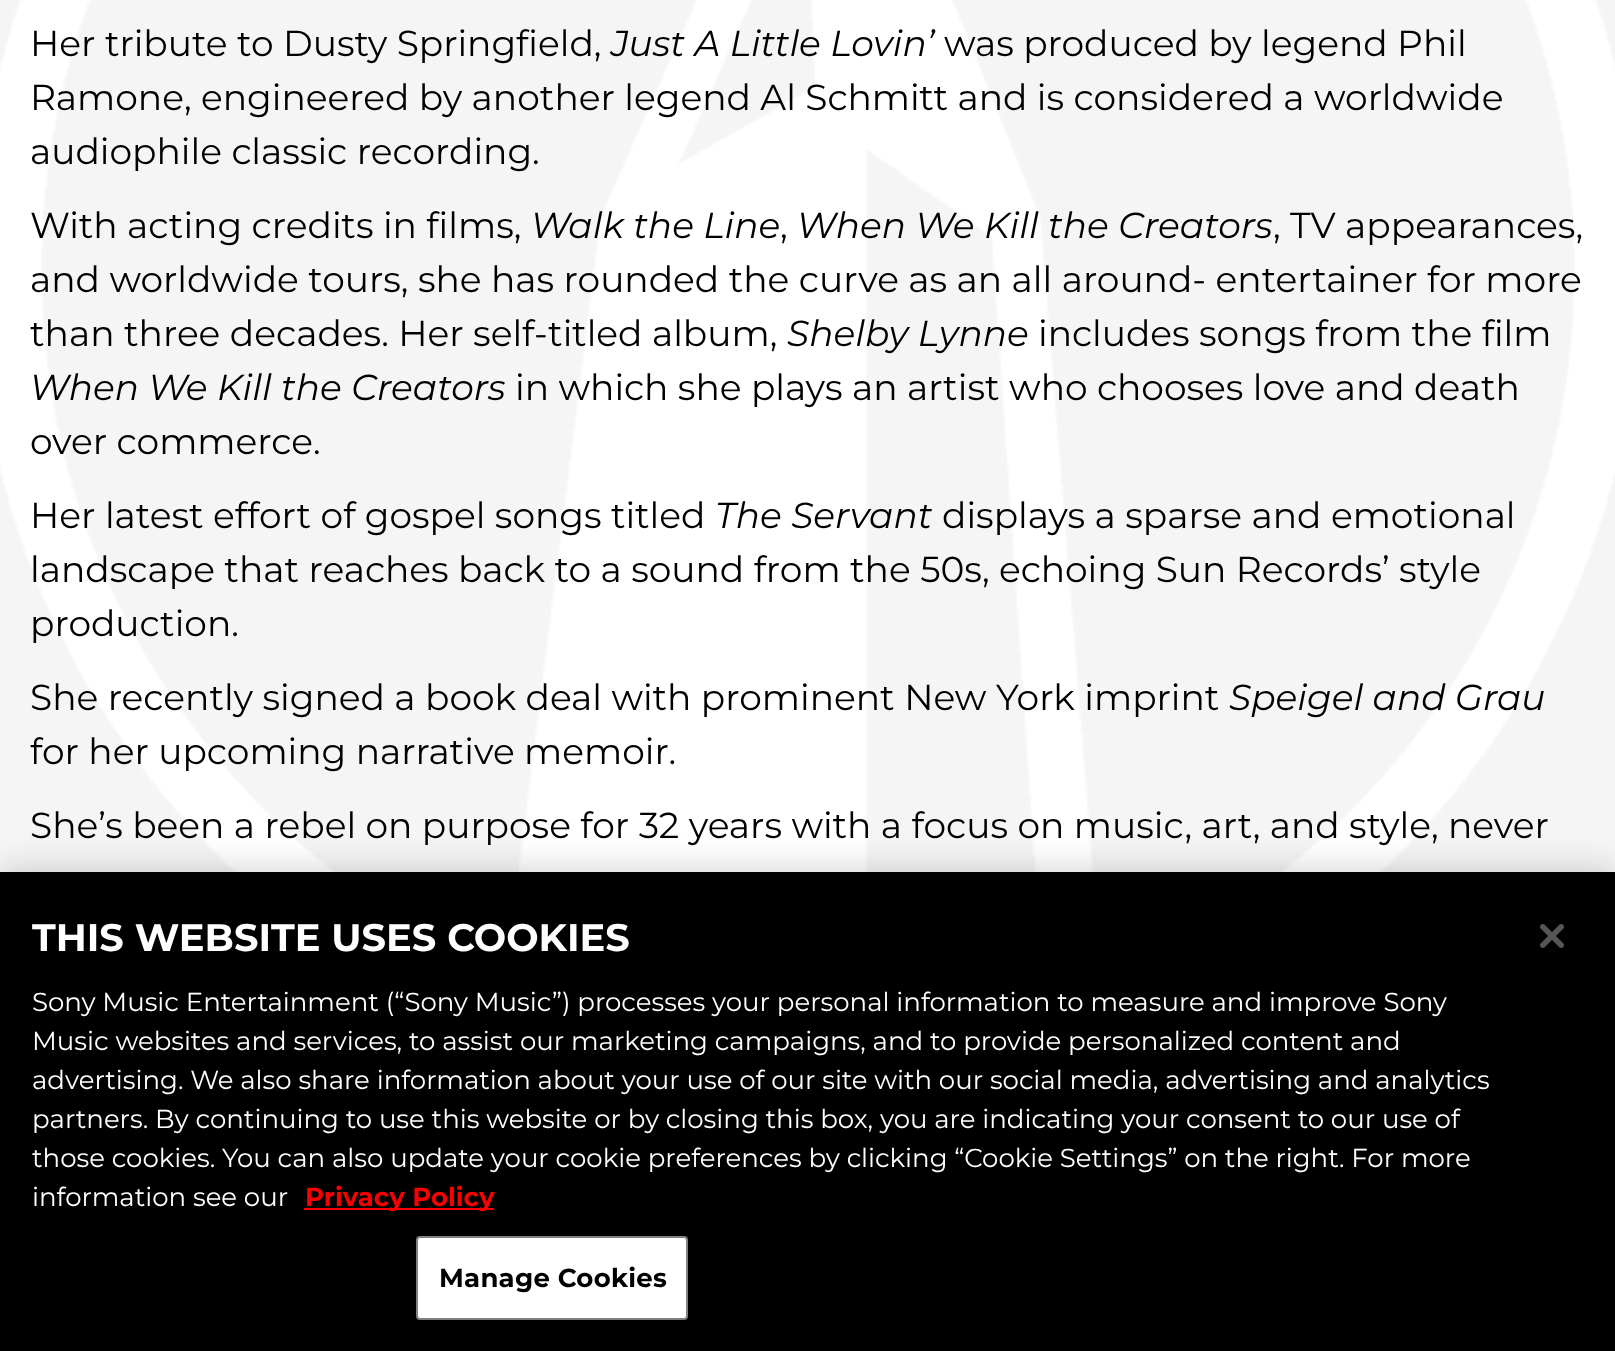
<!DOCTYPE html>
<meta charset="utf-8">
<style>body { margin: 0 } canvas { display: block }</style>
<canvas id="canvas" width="1615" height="1351"></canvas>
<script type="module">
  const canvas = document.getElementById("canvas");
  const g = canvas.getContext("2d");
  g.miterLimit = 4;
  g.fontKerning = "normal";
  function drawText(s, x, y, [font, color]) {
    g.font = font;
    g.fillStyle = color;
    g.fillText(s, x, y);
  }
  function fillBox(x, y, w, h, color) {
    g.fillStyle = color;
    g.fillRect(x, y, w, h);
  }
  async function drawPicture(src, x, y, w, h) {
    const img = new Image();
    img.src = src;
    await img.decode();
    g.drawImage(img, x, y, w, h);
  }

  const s1 = ["36px Montserrat", "#000000"];
  const s2 = ["italic 36px Montserrat", "#000000"];
  const s3 = ["bold 38.4px Montserrat", "#FFFFFF"];
  const s4 = ["26.02px Montserrat", "#FFFFFF"];
  const s5 = ["bold 26.02px Montserrat", "#F90000"];
  const s6 = ["bold 26.02px Montserrat", "#000000"];

  fillBox(0, 0, 1615, 1351, "#FFFFFF");
  await drawPicture("pic1.png", 0, 0, 1615, 872);
  drawText("Her tribute to Dusty Springfield,", 30, 56, s1);
  drawText("Just A Little Lovin’", 611, 56, s2);
  drawText("was produced by legend Phil", 944, 56, s1);
  drawText("Ramone, engineered by another legend Al Schmitt and is considered a worldwide", 30, 110, s1);
  drawText("audiophile classic recording.", 30, 164, s1);
  drawText("With acting credits in films,", 30, 238, s1);
  drawText("Walk the Line", 531, 238, s2);
  drawText(",", 780, 238, s1);
  drawText("When We Kill the Creators", 797, 238, s2);
  drawText(", TV appearances,", 1273, 238, s1);
  drawText("and worldwide tours, she has rounded the curve as an all around- entertainer for more", 30, 292, s1);
  drawText("than three decades. Her self-titled album,", 30, 346, s1);
  drawText("Shelby Lynne", 787, 346, s2);
  drawText("includes songs from the film", 1038, 346, s1);
  drawText("When We Kill the Creators", 30, 400, s2);
  drawText("in which she plays an artist who chooses love and death", 515, 400, s1);
  drawText("over commerce.", 30, 454, s1);
  drawText("Her latest effort of gospel songs titled", 30, 528, s1);
  drawText("The Servant", 715, 528, s2);
  drawText("displays a sparse and emotional", 942, 528, s1);
  drawText("landscape that reaches back to a sound from the 50s, echoing Sun Records’ style", 30, 582, s1);
  drawText("production.", 30, 636, s1);
  drawText("She recently signed a book deal with prominent New York imprint", 30, 710, s1);
  drawText("Speigel and Grau", 1229, 710, s2);
  drawText("for her upcoming narrative memoir.", 30, 764, s1);
  drawText("She’s been a rebel on purpose for 32 years with a focus on music, art, and style, never", 30, 838, s1);
  g.fillStyle = "rgba(0, 0, 0, 0.2)";
  g.filter = "blur(18px)";
  g.beginPath();
  g.rect(0, 872, 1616, 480);
  g.fill();
  g.filter = "none";
  fillBox(0, 872, 1615, 479, "#000000");
  drawText("THIS WEBSITE USES COOKIES", 32, 951, s3);
  drawText("Sony Music Entertainment (“Sony Music”) processes your personal information to measure and improve Sony", 32, 1011, s4);
  drawText("Music websites and services, to assist our marketing campaigns, and to provide personalized content and", 32, 1050, s4);
  drawText("advertising. We also share information about your use of our site with our social media, advertising and analytics", 32, 1089, s4);
  drawText("partners. By continuing to use this website or by closing this box, you are indicating your consent to our use of", 32, 1128, s4);
  drawText("those cookies. You can also update your cookie preferences by clicking “Cookie Settings” on the right. For more", 32, 1167, s4);
  drawText("information see our", 32, 1206, s4);
  fillBox(304, 1208, 190, 2, "#F90000");
  drawText("Privacy Policy", 305, 1206, s5);
  g.fillStyle = "#FFFFFF";
  g.beginPath();
  g.roundRect(417, 1237, 270, 82, 3);
  g.fill();
  g.strokeStyle = "#808080";
  g.lineWidth = 2;
  g.stroke();
  g.letterSpacing = "0.25px";
  drawText("Manage Cookies", 439, 1287, s6);
  await drawPicture("pic2.png", 1540, 924, 24, 24);
</script>
